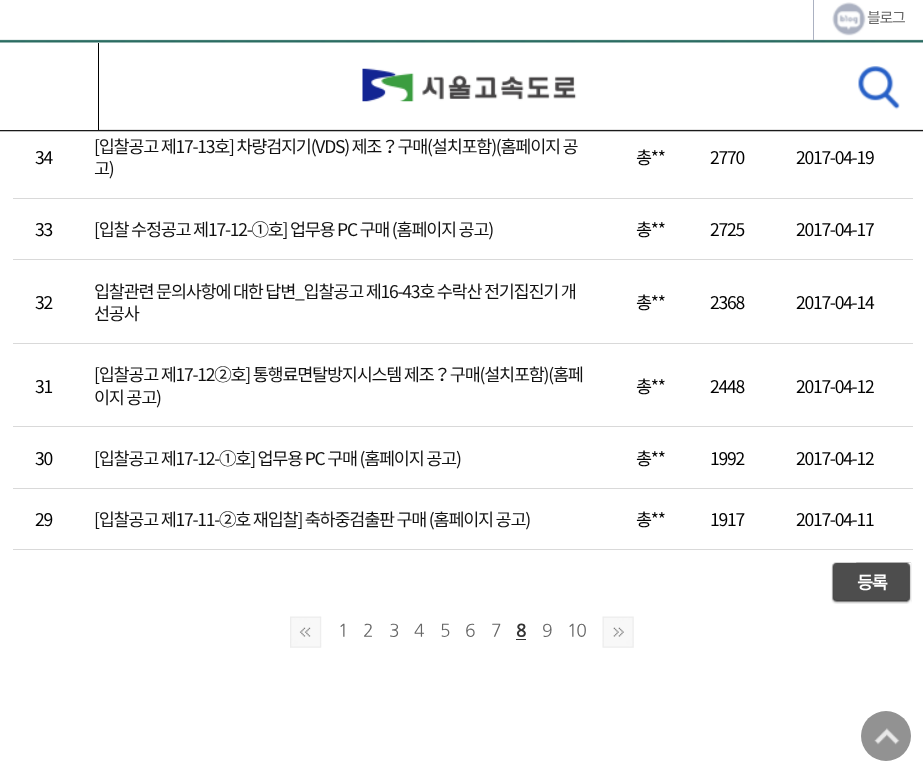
<!DOCTYPE html>
<meta charset="utf-8">
<style>body { margin: 0 } canvas { display: block }</style>
<canvas id="canvas" width="923" height="773"></canvas>
<script type="module">
  const canvas = document.getElementById("canvas");
  const g = canvas.getContext("2d");
  g.miterLimit = 4;
  g.fontKerning = "normal";
  function drawText(s, x, y, [font, color]) {
    g.font = font;
    g.fillStyle = color;
    g.fillText(s, x, y);
  }
  function fillBox(x, y, w, h, color) {
    g.fillStyle = color;
    g.fillRect(x, y, w, h);
  }
  async function drawPicture(src, x, y, w, h) {
    const img = new Image();
    img.src = src;
    await img.decode();
    g.drawImage(img, x, y, w, h);
  }

  const s1 = ["15px Noto Sans KR", "#666666"];
  const s2 = ["17.5px Noto Sans KR", "#000000"];
  const s3 = ["17.5px Noto Sans KR", "#111111"];
  const s4 = ["bold 17.5px Noto Sans KR", "#FFFFFF"];
  const s5 = ["17.5px NanumGothic", "#666666"];
  const s6 = ["bold 17.5px NanumGothic", "#333333"];

  fillBox(0, 0, 923, 773, "#FFFFFF");
  await drawPicture("pic1.png", 0, 0, 923, 132);
  fillBox(813, 0, 1, 40, "#ABB1C1");
  await drawPicture("pic2.png", 832, 2, 34, 34);
  g.letterSpacing = "-1.25px";
  drawText("블로그", 867, 23, s1);
  fillBox(0, 129, 98, 1, "#FFFFFF");
  fillBox(98, 43, 1, 87, "#000000");
  await drawPicture("pic3.png", 362, 68, 215, 34);
  await drawPicture("pic4.png", 858, 66, 42, 44);
  drawText("34", 35, 164, s2);
  drawText("[입찰공고 제17-13호] 차량검지기(VDS) 제조？구매(설치포함)(홈페이지 공", 94, 153, s3);
  drawText("고)", 94, 175, s3);
  drawText("총**", 636, 164, s2);
  drawText("2770", 710, 164, s2);
  fillBox(13, 198, 900, 1, "#D9D9D9");
  drawText("2017-04-19", 796, 164, s2);
  drawText("33", 35, 236, s2);
  drawText("[입찰 수정공고 제17-12-①호] 업무용 PC 구매 (홈페이지 공고)", 94, 236, s3);
  drawText("총**", 636, 236, s2);
  drawText("2725", 710, 236, s2);
  fillBox(13, 259, 900, 1, "#D9D9D9");
  drawText("2017-04-17", 796, 236, s2);
  drawText("32", 35, 309, s2);
  drawText("입찰관련 문의사항에 대한 답변_입찰공고 제16-43호 수락산 전기집진기 개", 94, 298, s3);
  drawText("선공사", 94, 320, s3);
  drawText("총**", 636, 309, s2);
  drawText("2368", 710, 309, s2);
  fillBox(13, 343, 900, 1, "#D9D9D9");
  drawText("2017-04-14", 796, 309, s2);
  drawText("31", 35, 393, s2);
  drawText("[입찰공고 제17-12②호] 통행료면탈방지시스템 제조？구매(설치포함)(홈페", 94, 381, s3);
  drawText("이지 공고)", 94, 404, s3);
  drawText("총**", 636, 393, s2);
  drawText("2448", 710, 393, s2);
  fillBox(13, 426, 900, 1, "#D9D9D9");
  drawText("2017-04-12", 796, 393, s2);
  drawText("30", 35, 465, s2);
  drawText("[입찰공고 제17-12-①호] 업무용 PC 구매 (홈페이지 공고)", 94, 465, s3);
  drawText("총**", 636, 465, s2);
  drawText("1992", 710, 465, s2);
  fillBox(13, 488, 900, 1, "#D9D9D9");
  drawText("2017-04-12", 796, 465, s2);
  drawText("29", 35, 526, s2);
  drawText("[입찰공고 제17-11-②호 재입찰] 축하중검출판 구매 (홈페이지 공고)", 94, 526, s3);
  drawText("총**", 636, 526, s2);
  drawText("1917", 710, 526, s2);
  fillBox(13, 549, 900, 1, "#D9D9D9");
  drawText("2017-04-11", 796, 526, s2);
  await drawPicture("pic5.png", 831, 562, 81, 42);
  await drawPicture("pic6.png", 856, 562, 55, 42);
  drawText("등록", 857, 589, s4);
  await drawPicture("pic7.png", 290, 616, 32, 32);
  drawText("1", 338, 636, s5);
  drawText("2", 363, 636, s5);
  drawText("3", 389, 636, s5);
  drawText("4", 414, 636, s5);
  drawText("5", 440, 636, s5);
  drawText("6", 465, 636, s5);
  drawText("7", 491, 636, s5);
  fillBox(516, 639, 10, 1, "#333333");
  drawText("8", 516, 636, s6);
  drawText("9", 542, 636, s5);
  drawText("10", 567, 636, s5);
  await drawPicture("pic8.png", 602, 616, 32, 32);
  g.fillStyle = "#929292";
  g.beginPath();
  g.arc(886, 736, 25, 0, Math.PI * 2);
  g.fill();
  await drawPicture("pic9.png", 874, 728, 26, 17);
</script>
